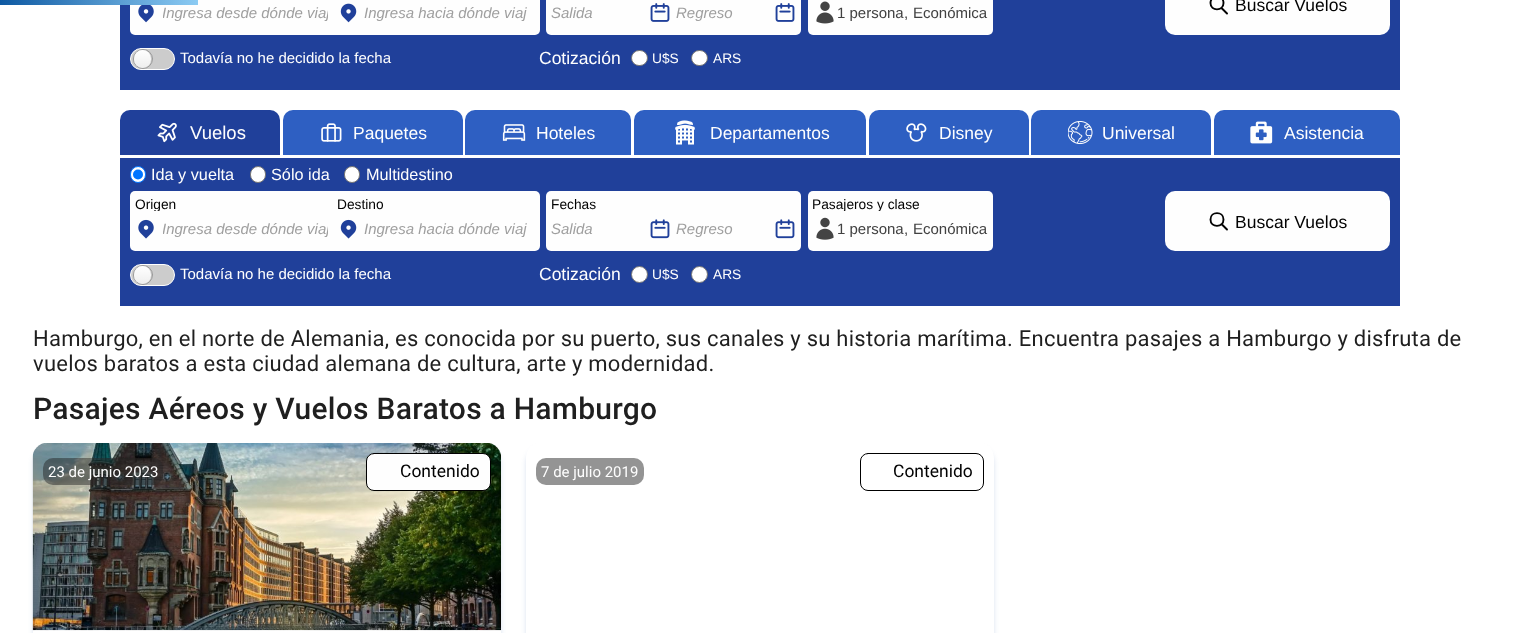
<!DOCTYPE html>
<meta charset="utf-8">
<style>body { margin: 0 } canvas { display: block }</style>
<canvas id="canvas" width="1519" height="633"></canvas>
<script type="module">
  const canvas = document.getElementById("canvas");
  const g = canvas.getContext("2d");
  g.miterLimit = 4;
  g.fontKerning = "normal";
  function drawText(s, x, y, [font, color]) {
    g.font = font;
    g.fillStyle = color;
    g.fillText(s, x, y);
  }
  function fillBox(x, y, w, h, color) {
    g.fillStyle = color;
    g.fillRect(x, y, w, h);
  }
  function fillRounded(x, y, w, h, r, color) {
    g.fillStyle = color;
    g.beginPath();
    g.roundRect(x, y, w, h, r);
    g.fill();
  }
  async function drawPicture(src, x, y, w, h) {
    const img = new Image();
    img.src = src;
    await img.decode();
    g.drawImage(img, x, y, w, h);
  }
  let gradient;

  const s1 = ["italic 15px Liberation Sans", "#9F9F9F"];
  const s2 = ["15px Liberation Sans", "#414141"];
  const s3 = ["17.5px Liberation Sans", "#020202"];
  const s4 = ["15px Liberation Sans", "#FEFEFE"];
  const s5 = ["17.5px Liberation Sans", "#FEFEFE"];
  const s6 = ["13.75px Liberation Sans", "#FEFEFE"];
  const s7 = ["18.5px Liberation Sans", "#FEFEFE"];
  const s8 = ["16.25px Liberation Sans", "#FEFEFE"];
  const s9 = ["13.75px Liberation Sans", "#020202"];
  const s10 = ["22px Roboto", "#1F1F1F"];
  const s11 = ["500 30px Roboto", "#1F1F1F"];
  const s12 = ["15px Roboto", "#FEFEFE"];
  const s13 = ["17.5px Roboto", "#020202"];

  fillBox(0, 0, 1519, 633, "#FFFFFF");
  fillBox(120, 0, 1280, 90, "#20409A");
  fillRounded(130, -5, 410, 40, 5, "#FEFEFE");
  gradient = g.createLinearGradient(0, 2.5, 198, 2.5);
  gradient.addColorStop(0, "#0E59A2");
  gradient.addColorStop(1, "#8CCBF3");
  g.fillStyle = gradient;
  g.fillRect(0, 0, 198, 5);
  await drawPicture("pic1.png", 138, 5, 16, 18);
  g.save();
  g.beginPath();
  g.rect(163, 4, 165, 17);
  g.clip();
  drawText("Ingresa desde dónde viaj", 162, 18, s1);
  g.restore();
  await drawPicture("pic2.png", 340, 3, 17, 20);
  drawText("Ingresa hacia dónde viaj", 364, 18, s1);
  fillRounded(546, -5, 255, 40, 5, "#FEFEFE");
  drawText("Salida", 551, 18, s1);
  await drawPicture("pic3.png", 650, 3, 20, 19);
  drawText("Regreso", 676, 18, s1);
  await drawPicture("pic3.png", 775, 3, 20, 19);
  fillRounded(808, -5, 185, 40, 5, "#FEFEFE");
  await drawPicture("pic4.png", 816, 1, 18, 23);
  drawText("1 persona", 837, 18, s2);
  drawText(",", 904, 18, s2);
  drawText("Económica", 913, 18, s2);
  fillRounded(1165, -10, 225, 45, 10, "#FEFEFE");
  g.beginPath();
  g.moveTo(1227, 13.5);
  g.lineTo(1221.5, 8);
  g.moveTo(1223.5, 3);
  g.bezierCurveTo(1223.5, 11.5, 1210.5, 11.5, 1210.5, 3);
  g.bezierCurveTo(1210.5, -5.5, 1223.5, -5.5, 1223.5, 3);
  g.closePath();
  g.strokeStyle = "#020202";
  g.lineWidth = 1.9;
  g.lineCap = "round";
  g.lineJoin = "round";
  g.stroke();
  drawText("Buscar Vuelos", 1235, 11, s3);
  g.fillStyle = "#CCCCCC";
  g.beginPath();
  g.roundRect(130.5, 48.5, 44, 21, 10.5);
  g.fill();
  g.strokeStyle = "#FEFEFE";
  g.lineWidth = 1;
  g.lineJoin = "miter";
  g.stroke();
  g.beginPath();
  g.arc(143, 59, 9.5, 0, Math.PI * 2);
  g.strokeStyle = "#999999";
  g.stroke();
  gradient = g.createLinearGradient(143, 50, 143, 68);
  gradient.addColorStop(0, "#FFFFFF");
  gradient.addColorStop(1, "#EEEEEE");
  g.fillStyle = gradient;
  g.beginPath();
  g.roundRect(134, 50, 17, 18, 8.5);
  g.fill();
  drawText("Todavía no he decidido la fecha", 180, 63, s4);
  drawText("Cotización", 539, 64, s5);
  g.fillStyle = "#FFFFFF";
  g.beginPath();
  g.roundRect(631.5, 50.5, 16, 15, 7.5);
  g.fill();
  g.strokeStyle = "#767676";
  g.stroke();
  drawText("U$S", 652, 63, s6);
  g.fillStyle = "#FFFFFF";
  g.beginPath();
  g.roundRect(691.5, 50.5, 16, 15, 7.5);
  g.fill();
  g.stroke();
  drawText("ARS", 713, 63, s6);
  g.fillStyle = "#20409A";
  g.beginPath();
  g.roundRect(120, 110, 160, 45, [10, 10, 0, 0]);
  g.fill();
  await drawPicture("pic5.png", 157, 122, 20, 21);
  drawText("Vuelos", 190, 139, s7);
  g.fillStyle = "#2E5FC2";
  g.beginPath();
  g.roundRect(283, 110, 180, 45, [10, 10, 0, 0]);
  g.fill();
  await drawPicture("pic6.png", 321, 123, 21, 19);
  drawText("Paquetes", 353, 139, s5);
  g.fillStyle = "#2E5FC2";
  g.beginPath();
  g.roundRect(465, 110, 166, 45, [10, 10, 0, 0]);
  g.fill();
  await drawPicture("pic7.png", 502, 124, 24, 17);
  drawText("Hoteles", 536, 139, s5);
  g.fillStyle = "#2E5FC2";
  g.beginPath();
  g.roundRect(634, 110, 232, 45, [10, 10, 0, 0]);
  g.fill();
  await drawPicture("pic8.png", 675, 120, 20, 25);
  drawText("Departamentos", 710, 139, s5);
  g.fillStyle = "#2E5FC2";
  g.beginPath();
  g.roundRect(869, 110, 160, 45, [10, 10, 0, 0]);
  g.fill();
  await drawPicture("pic9.png", 906, 123, 21, 19);
  drawText("Disney", 939, 139, s5);
  g.fillStyle = "#2E5FC2";
  g.beginPath();
  g.roundRect(1031, 110, 180, 45, [10, 10, 0, 0]);
  g.fill();
  await drawPicture("pic10.png", 1068, 121, 25, 24);
  drawText("Universal", 1102, 139, s5);
  g.fillStyle = "#2E5FC2";
  g.beginPath();
  g.roundRect(1214, 110, 186, 45, [10, 10, 0, 0]);
  g.fill();
  await drawPicture("pic11.png", 1250, 121, 23, 23);
  drawText("Asistencia", 1284, 139, s5);
  fillBox(120, 158, 1280, 148, "#20409A");
  g.fillStyle = "#FFFFFF";
  g.beginPath();
  g.roundRect(130.5, 166.5, 15, 16, 7.5);
  g.fill();
  g.strokeStyle = "#0075FF";
  g.stroke();
  g.fillStyle = "#0075FF";
  g.beginPath();
  g.arc(138, 174.5, 5, 0, Math.PI * 2);
  g.fill();
  drawText("Ida y vuelta", 151, 180, s8);
  g.fillStyle = "#FFFFFF";
  g.beginPath();
  g.roundRect(250.5, 166.5, 15, 16, 7.5);
  g.fill();
  g.strokeStyle = "#767676";
  g.stroke();
  drawText("Sólo ida", 271, 180, s8);
  g.fillStyle = "#FFFFFF";
  g.beginPath();
  g.roundRect(344.5, 166.5, 15, 16, 7.5);
  g.fill();
  g.stroke();
  drawText("Multidestino", 366, 180, s8);
  fillRounded(130, 191, 410, 60, 5, "#FEFEFE");
  drawText("Origen", 135, 209, s9);
  fillRounded(135, 211, 198, 35, 5, "#FEFEFE");
  await drawPicture("pic12.png", 138, 219, 16, 20);
  g.save();
  g.beginPath();
  g.rect(163, 220, 165, 18);
  g.clip();
  drawText("Ingresa desde dónde viaj", 162, 234, s1);
  g.restore();
  drawText("Destino", 337, 209, s9);
  await drawPicture("pic13.png", 340, 219, 17, 20);
  drawText("Ingresa hacia dónde viaj", 364, 234, s1);
  fillRounded(546, 191, 255, 60, 5, "#FEFEFE");
  drawText("Fechas", 551, 209, s9);
  drawText("Salida", 551, 234, s1);
  await drawPicture("pic14.png", 650, 219, 20, 20);
  drawText("Regreso", 676, 234, s1);
  await drawPicture("pic14.png", 775, 219, 20, 20);
  fillRounded(808, 191, 185, 60, 5, "#FEFEFE");
  drawText("Pasajeros y clase", 812, 209, s9);
  fillRounded(813, 211, 175, 35, 5, "#FEFEFE");
  await drawPicture("pic15.png", 816, 217, 18, 23);
  drawText("1 persona", 837, 234, s2);
  drawText(",", 904, 234, s2);
  drawText("Económica", 913, 234, s2);
  fillRounded(1165, 191, 225, 60, 10, "#FEFEFE");
  g.beginPath();
  g.moveTo(1227, 229.5);
  g.lineTo(1221.5, 224);
  g.moveTo(1223.5, 219.5);
  g.bezierCurveTo(1223.5, 228, 1210.5, 228, 1210.5, 219.5);
  g.bezierCurveTo(1210.5, 211, 1223.5, 211, 1223.5, 219.5);
  g.closePath();
  g.strokeStyle = "#020202";
  g.lineWidth = 1.9;
  g.lineJoin = "round";
  g.stroke();
  drawText("Buscar Vuelos", 1235, 228, s3);
  g.fillStyle = "#CCCCCC";
  g.beginPath();
  g.roundRect(130.5, 264.5, 44, 21, 10.5);
  g.fill();
  g.strokeStyle = "#FEFEFE";
  g.lineWidth = 1;
  g.lineJoin = "miter";
  g.stroke();
  g.beginPath();
  g.arc(143, 275, 9.5, 0, Math.PI * 2);
  g.strokeStyle = "#999999";
  g.stroke();
  gradient = g.createLinearGradient(143, 266, 143, 284);
  gradient.addColorStop(0, "#FFFFFF");
  gradient.addColorStop(1, "#EEEEEE");
  g.fillStyle = gradient;
  g.beginPath();
  g.roundRect(134, 266, 17, 18, 8.5);
  g.fill();
  drawText("Todavía no he decidido la fecha", 180, 279, s4);
  drawText("Cotización", 539, 280, s5);
  g.fillStyle = "#FFFFFF";
  g.beginPath();
  g.arc(639.5, 274.5, 8, 0, Math.PI * 2);
  g.fill();
  g.strokeStyle = "#767676";
  g.stroke();
  drawText("U$S", 652, 279, s6);
  g.fillStyle = "#FFFFFF";
  g.beginPath();
  g.arc(699.5, 274.5, 8, 0, Math.PI * 2);
  g.fill();
  g.stroke();
  drawText("ARS", 713, 279, s6);
  g.letterSpacing = "0.25px";
  drawText("Hamburgo, en el norte de Alemania, es conocida por su puerto, sus canales y su historia marítima. Encuentra pasajes a Hamburgo y disfruta de", 33, 346, s10);
  drawText("vuelos baratos a esta ciudad alemana de cultura, arte y modernidad.", 33, 371, s10);
  drawText("Pasajes Aéreos y Vuelos Baratos a Hamburgo", 33, 419, s11);
  g.save();
  g.beginPath();
  g.moveTo(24, 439);
  g.lineTo(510, 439);
  g.lineTo(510, 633);
  g.lineTo(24, 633);
  g.closePath();
  g.moveTo(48, 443);
  g.lineTo(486, 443);
  g.bezierCurveTo(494.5, 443, 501, 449.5, 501, 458);
  g.lineTo(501, 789);
  g.bezierCurveTo(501, 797.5, 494.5, 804, 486, 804);
  g.lineTo(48, 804);
  g.bezierCurveTo(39.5, 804, 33, 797.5, 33, 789);
  g.lineTo(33, 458);
  g.bezierCurveTo(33, 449.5, 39.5, 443, 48, 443);
  g.closePath();
  g.clip("evenodd");
  g.fillStyle = "rgba(74, 114, 178, 0.2)";
  g.filter = "blur(2.5px)";
  g.beginPath();
  g.roundRect(33, 448, 468, 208, 15);
  g.fill();
  g.filter = "none";
  g.restore();
  await drawPicture("pic16.png", 32, 443, 469, 188);
  fillRounded(43, 458, 120, 27, 10, "rgba(38, 38, 38, 0.49)");
  g.letterSpacing = "0px";
  drawText("23 de junio 2023", 48, 477, s12);
  g.beginPath();
  g.roundRect(366.5, 453.5, 124, 37, 7.5);
  g.fill();
  g.strokeStyle = "#000000";
  g.stroke();
  drawText("Contenido", 400, 477, s13);
  g.save();
  g.beginPath();
  g.moveTo(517, 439);
  g.lineTo(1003, 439);
  g.lineTo(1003, 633);
  g.lineTo(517, 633);
  g.closePath();
  g.moveTo(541, 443);
  g.lineTo(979, 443);
  g.bezierCurveTo(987.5, 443, 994, 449.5, 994, 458);
  g.lineTo(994, 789);
  g.bezierCurveTo(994, 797.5, 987.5, 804, 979, 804);
  g.lineTo(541, 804);
  g.bezierCurveTo(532.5, 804, 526, 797.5, 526, 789);
  g.lineTo(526, 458);
  g.bezierCurveTo(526, 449.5, 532.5, 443, 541, 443);
  g.closePath();
  g.clip("evenodd");
  g.fillStyle = "rgba(74, 114, 178, 0.2)";
  g.filter = "blur(2.5px)";
  g.beginPath();
  g.roundRect(526, 448, 468, 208, 15);
  g.fill();
  g.filter = "none";
  g.restore();
  fillRounded(536, 458, 108, 27, 10, "#949494");
  drawText("7 de julio 2019", 541, 477, s12);
  g.beginPath();
  g.roundRect(860.5, 453.5, 123, 37, 7.5);
  g.stroke();
  drawText("Contenido", 893, 477, s13);
</script>
